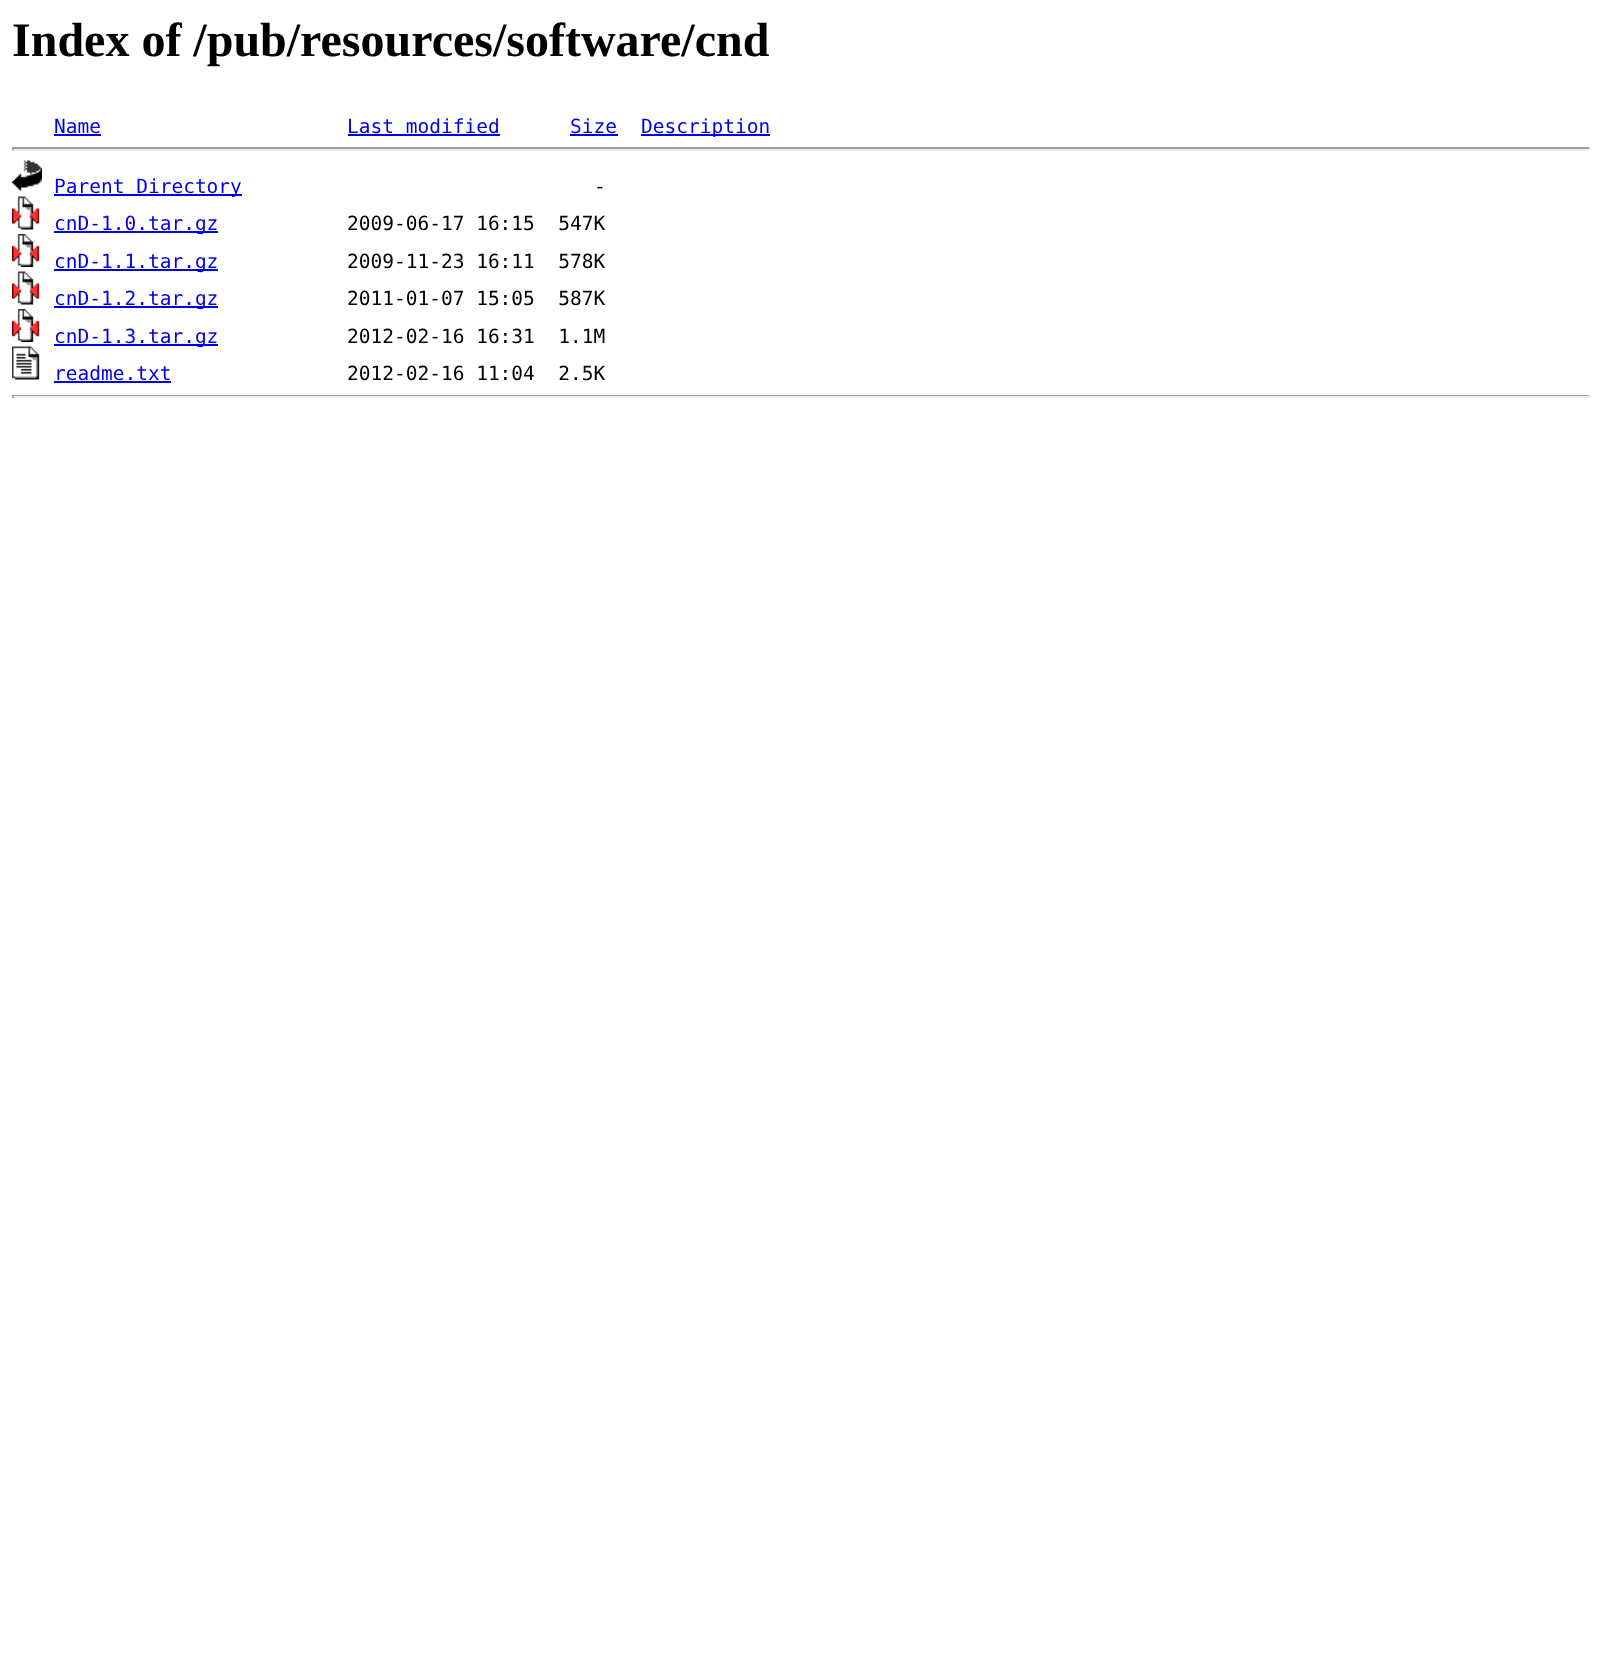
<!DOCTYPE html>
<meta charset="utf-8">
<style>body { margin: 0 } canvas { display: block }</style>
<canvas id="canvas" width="1602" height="1662"></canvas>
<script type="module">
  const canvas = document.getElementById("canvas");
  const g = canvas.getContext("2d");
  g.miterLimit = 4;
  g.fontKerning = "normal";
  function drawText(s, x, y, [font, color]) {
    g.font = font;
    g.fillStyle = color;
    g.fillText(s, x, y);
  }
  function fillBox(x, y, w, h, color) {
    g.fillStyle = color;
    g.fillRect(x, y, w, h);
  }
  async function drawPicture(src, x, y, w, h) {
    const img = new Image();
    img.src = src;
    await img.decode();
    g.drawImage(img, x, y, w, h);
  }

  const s1 = ["bold 48px Liberation Serif", "#000000"];
  const s2 = ["19.5px DejaVu Sans Mono", "#0000EE"];
  const s3 = ["19.5px DejaVu Sans Mono", "#000000"];

  fillBox(0, 0, 1602, 1662, "#FFFFFF");
  drawText("Index of /pub/resources/software/cnd", 12, 56, s1);
  drawText("Name", 54, 133, s2);
  fillBox(54, 134, 47, 2, "#0000EE");
  drawText("Last modified", 347, 133, s2);
  fillBox(348, 134, 152, 2, "#0000EE");
  drawText("Size", 570, 133, s2);
  fillBox(570, 134, 48, 2, "#0000EE");
  fillBox(641, 134, 129, 2, "#0000EE");
  drawText("Description", 641, 133, s2);
  fillBox(12, 147, 1578, 2, "#9F9F9F");
  fillBox(1589, 147, 2, 3, "#EEEEEE");
  fillBox(12, 149, 1578, 2, "#EEEEEE");
  fillBox(12, 147, 2, 3, "#9F9F9F");
  await drawPicture("pic1.png", 12, 160, 30, 31);
  fillBox(54, 194, 188, 2, "#0000EE");
  drawText("Parent Directory", 54, 193, s2);
  drawText("-", 594, 193, s3);
  await drawPicture("pic2.png", 12, 196, 28, 34);
  fillBox(54, 231, 164, 2, "#0000EE");
  drawText("cnD-1.0.tar.gz", 54, 230, s2);
  drawText("2009-06-17 16:15  547K", 347, 230, s3);
  await drawPicture("pic3.png", 12, 234, 28, 33);
  fillBox(54, 269, 164, 2, "#0000EE");
  drawText("cnD-1.1.tar.gz", 54, 268, s2);
  drawText("2009-11-23 16:11  578K", 347, 268, s3);
  await drawPicture("pic2.png", 12, 271, 28, 34);
  fillBox(54, 306, 164, 2, "#0000EE");
  drawText("cnD-1.2.tar.gz", 54, 305, s2);
  drawText("2011-01-07 15:05  587K", 347, 305, s3);
  await drawPicture("pic3.png", 12, 309, 28, 33);
  fillBox(54, 344, 164, 2, "#0000EE");
  drawText("cnD-1.3.tar.gz", 54, 343, s2);
  drawText("2012-02-16 16:31  1.1M", 347, 343, s3);
  await drawPicture("pic4.png", 12, 346, 28, 34);
  drawText("readme.txt", 54, 380, s2);
  fillBox(54, 381, 117, 2, "#0000EE");
  drawText("2012-02-16 11:04  2.5K", 347, 380, s3);
  fillBox(12, 395, 1578, 1, "#9F9F9F");
  fillBox(1589, 395, 2, 3, "#EEEEEE");
  fillBox(12, 396, 1578, 2, "#EEEEEE");
  fillBox(12, 395, 2, 3, "#9F9F9F");
</script>
